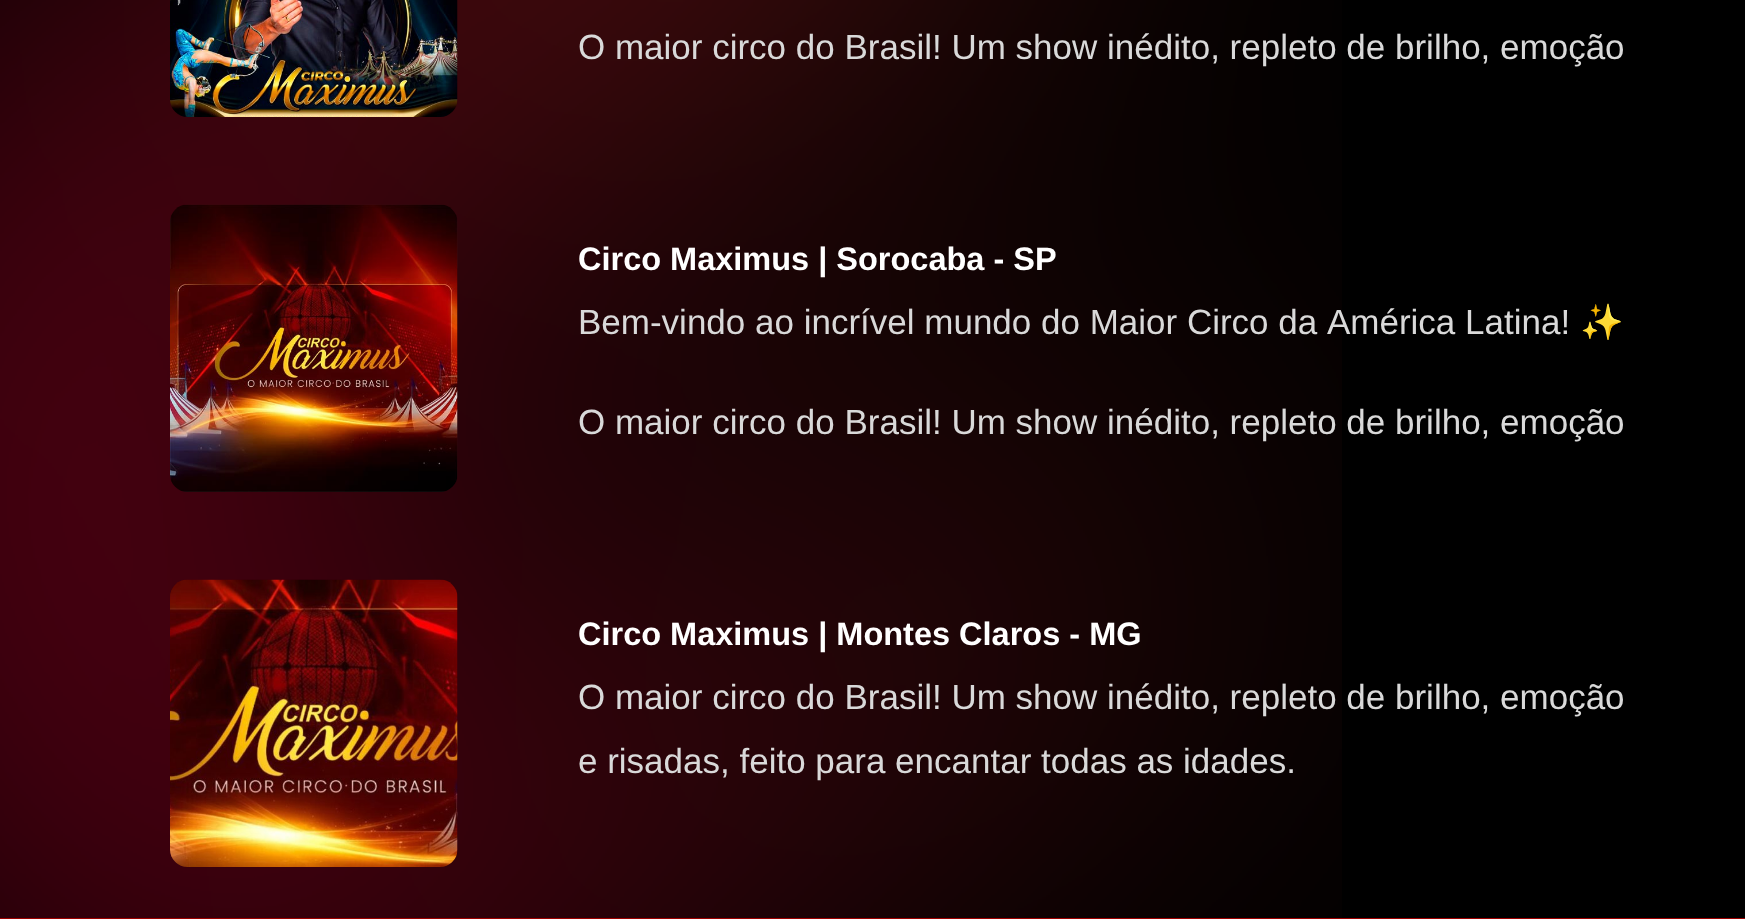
<!DOCTYPE html>
<meta charset="utf-8">
<style>body { margin: 0 } canvas { display: block }</style>
<canvas id="canvas" width="1745" height="919"></canvas>
<script type="module">
  const canvas = document.getElementById("canvas");
  const g = canvas.getContext("2d");
  g.miterLimit = 4;
  g.fontKerning = "none";
  function drawText(s, x, y, [font, color]) {
    g.font = font;
    g.fillStyle = color;
    g.fillText(s, x, y);
  }
  function fillBox(x, y, w, h, color) {
    g.fillStyle = color;
    g.fillRect(x, y, w, h);
  }
  async function drawPicture(src, x, y, w, h) {
    const img = new Image();
    img.src = src;
    await img.decode();
    g.drawImage(img, x, y, w, h);
  }

  const s1 = ["35px Liberation Sans", "#D9D9D9"];
  const s2 = ["bold 32.5px Liberation Sans", "#FFFFFF"];
  const s3 = ["35px Noto Color Emoji", "#D9D9D9"];

  fillBox(0, 0, 1745, 919, "#000000");
  await drawPicture("pic1.png", 0, 0, 1342, 918);
  await drawPicture("pic2.png", 170, 0, 288, 117);
  drawText("O maior circo do Brasil! Um show inédito, repleto de brilho, emoção", 578, 59, s1);
  await drawPicture("pic3.png", 170, 204, 288, 288);
  drawText("Circo Maximus | Sorocaba - SP", 578, 270, s2);
  drawText("Bem-vindo ao incrível mundo do Maior Circo da América Latina!", 578, 334, s1);
  drawText("✨", 1580, 334, s3);
  drawText("O maior circo do Brasil! Um show inédito, repleto de brilho, emoção", 578, 434, s1);
  await drawPicture("pic4.png", 170, 579, 288, 288);
  drawText("Circo Maximus | Montes Claros - MG", 578, 645, s2);
  drawText("O maior circo do Brasil! Um show inédito, repleto de brilho, emoção", 578, 709, s1);
  drawText("e risadas, feito para encantar todas as idades.", 578, 773, s1);
  fillBox(0, 918, 1745, 1, "#9E0000");
</script>
